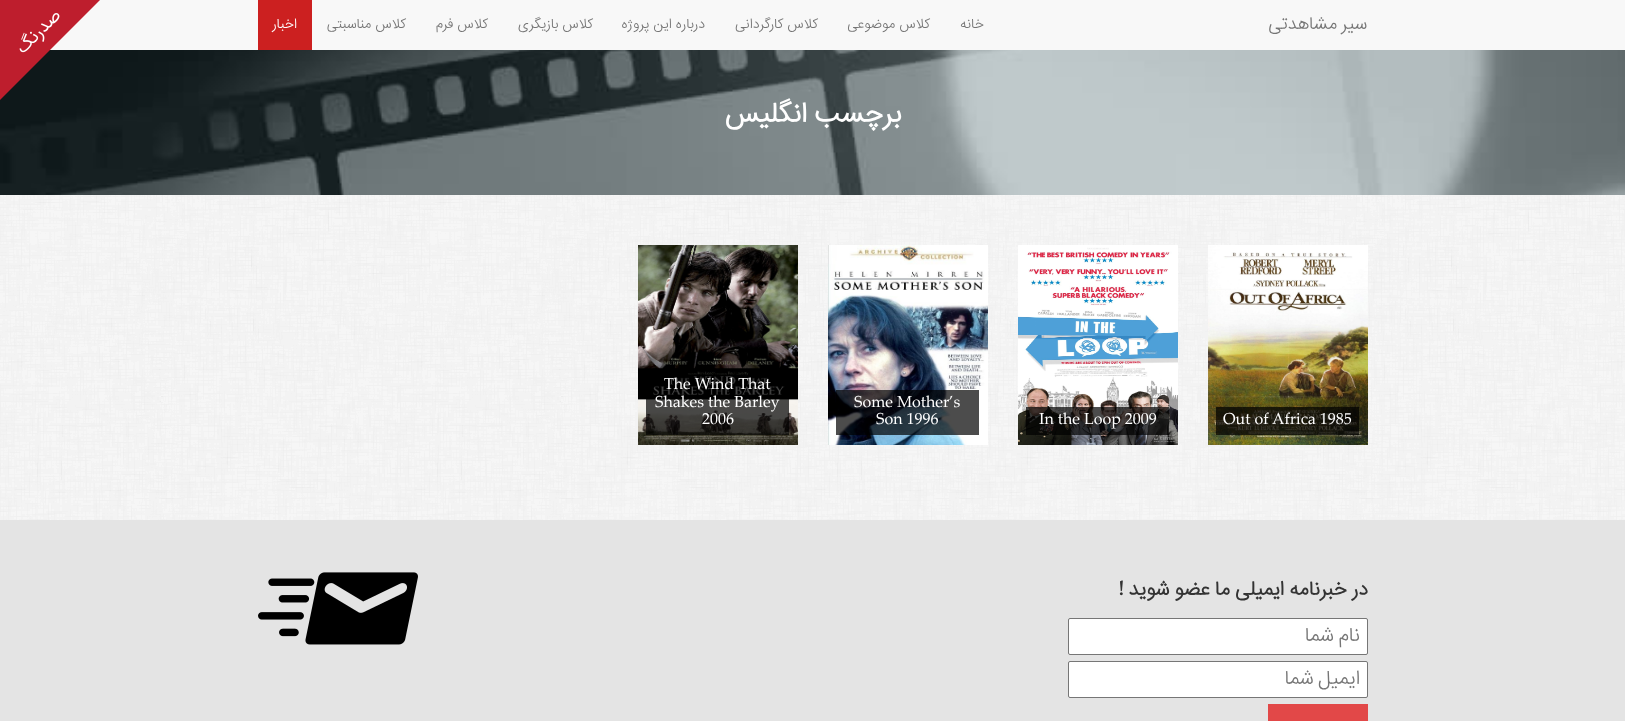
<!DOCTYPE html>
<meta charset="utf-8">
<style>body { margin: 0 } canvas { display: block }</style>
<canvas id="canvas" width="1625" height="721"></canvas>
<script type="module">
  const canvas = document.getElementById("canvas");
  const g = canvas.getContext("2d");
  g.miterLimit = 4;
  g.fontKerning = "normal";
  function drawText(s, x, y, [font, color]) {
    g.font = font;
    g.fillStyle = color;
    g.fillText(s, x, y);
  }
  function fillBox(x, y, w, h, color) {
    g.fillStyle = color;
    g.fillRect(x, y, w, h);
  }
  async function drawPicture(src, x, y, w, h) {
    const img = new Image();
    img.src = src;
    await img.decode();
    g.drawImage(img, x, y, w, h);
  }

  const s1 = ["300 18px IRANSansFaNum", "#757575"];
  const s2 = ["300 14px IRANSansFaNum", "#757575"];
  const s3 = ["300 14px IRANSansFaNum", "#FFFFFF"];
  const s4 = ["bold 28px IRANSansFaNum", "#FFFFFF"];
  const s5 = ["16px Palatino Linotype", "#FFFFFF"];
  const s6 = ["bold 20px IRANSansFaNum", "#333333"];
  const s7 = ["bold 20px Palatino Linotype", "#333333"];
  const s8 = ["300 20px IRANSansFaNum", "#757575"];

  fillBox(0, 0, 1625, 721, "#FFFFFF");
  await drawPicture("pic1.png", 0, 195, 1625, 325);
  fillBox(50, 0, 1575, 50, "#F8F8F8");
  g.wordSpacing = "-1px";
  g.direction = "rtl";
  drawText("سیر مشاهدتی", 1367, 29, s1);
  g.wordSpacing = "0px";
  drawText("خانه", 984, 28, s2);
  drawText("کلاس موضوعی", 930, 28, s2);
  drawText("کلاس کارگردانی", 818, 28, s2);
  drawText("درباره این پروژه", 705, 28, s2);
  drawText("کلاس بازیگری", 593, 28, s2);
  drawText("کلاس فرم", 488, 28, s2);
  drawText("کلاس مناسبتی", 406, 28, s2);
  fillBox(258, 0, 54, 50, "#CC2020");
  drawText("اخبار", 297, 28, s3);
  await drawPicture("pic3.png", 0, 50, 1625, 145);
  await drawPicture("pic2.png", 0, 0, 100, 100);
  g.wordSpacing = "-1px";
  drawText("برچسب انگلیس", 901, 122, s4);
  await drawPicture("pic4.png", 1208, 245, 160, 200);
  fillBox(1216, 407, 143, 28, "rgba(0, 0, 0, 0.7)");
  g.wordSpacing = "0px";
  g.direction = "ltr";
  drawText("Out of Africa 1985", 1223, 424, s5);
  await drawPicture("pic5.png", 1018, 245, 160, 200);
  fillBox(1026, 407, 143, 28, "rgba(0, 0, 0, 0.7)");
  drawText("In the Loop 2009", 1039, 424, s5);
  await drawPicture("pic6.png", 828, 245, 160, 200);
  fillBox(836, 390, 143, 45, "rgba(0, 0, 0, 0.7)");
  drawText("Some Mother’s", 854, 407, s5);
  drawText("Son 1996", 876, 424, s5);
  await drawPicture("pic7.png", 638, 245, 160, 200);
  fillBox(646, 372, 143, 63, "rgba(0, 0, 0, 0.7)");
  drawText("The Wind That", 664, 389, s5);
  drawText("Shakes the Barley", 655, 407, s5);
  drawText("2006", 702, 424, s5);
  fillBox(0, 520, 1625, 201, "#E4E4E4");
  g.wordSpacing = "-0.5px";
  g.direction = "rtl";
  drawText("در خبرنامه ایمیلی ما عضو شوید", 1368, 595, s6);
  g.wordSpacing = "0px";
  drawText("!", 1124, 595, s7);
  g.fillStyle = "#FFFFFF";
  g.beginPath();
  g.roundRect(1068.5, 618.5, 299, 36, 1.5);
  g.fill();
  g.strokeStyle = "#767676";
  g.stroke();
  g.wordSpacing = "-1px";
  drawText("نام شما", 1360, 641, s8);
  g.fillStyle = "#FFFFFF";
  g.beginPath();
  g.roundRect(1068.5, 661.5, 299, 36, 1.5);
  g.fill();
  g.stroke();
  drawText("ایمیل شما", 1360, 684, s8);
  fillBox(1268, 704, 100, 17, "#E24848");
  await drawPicture("pic8.png", 258, 572, 160, 73);
</script>
